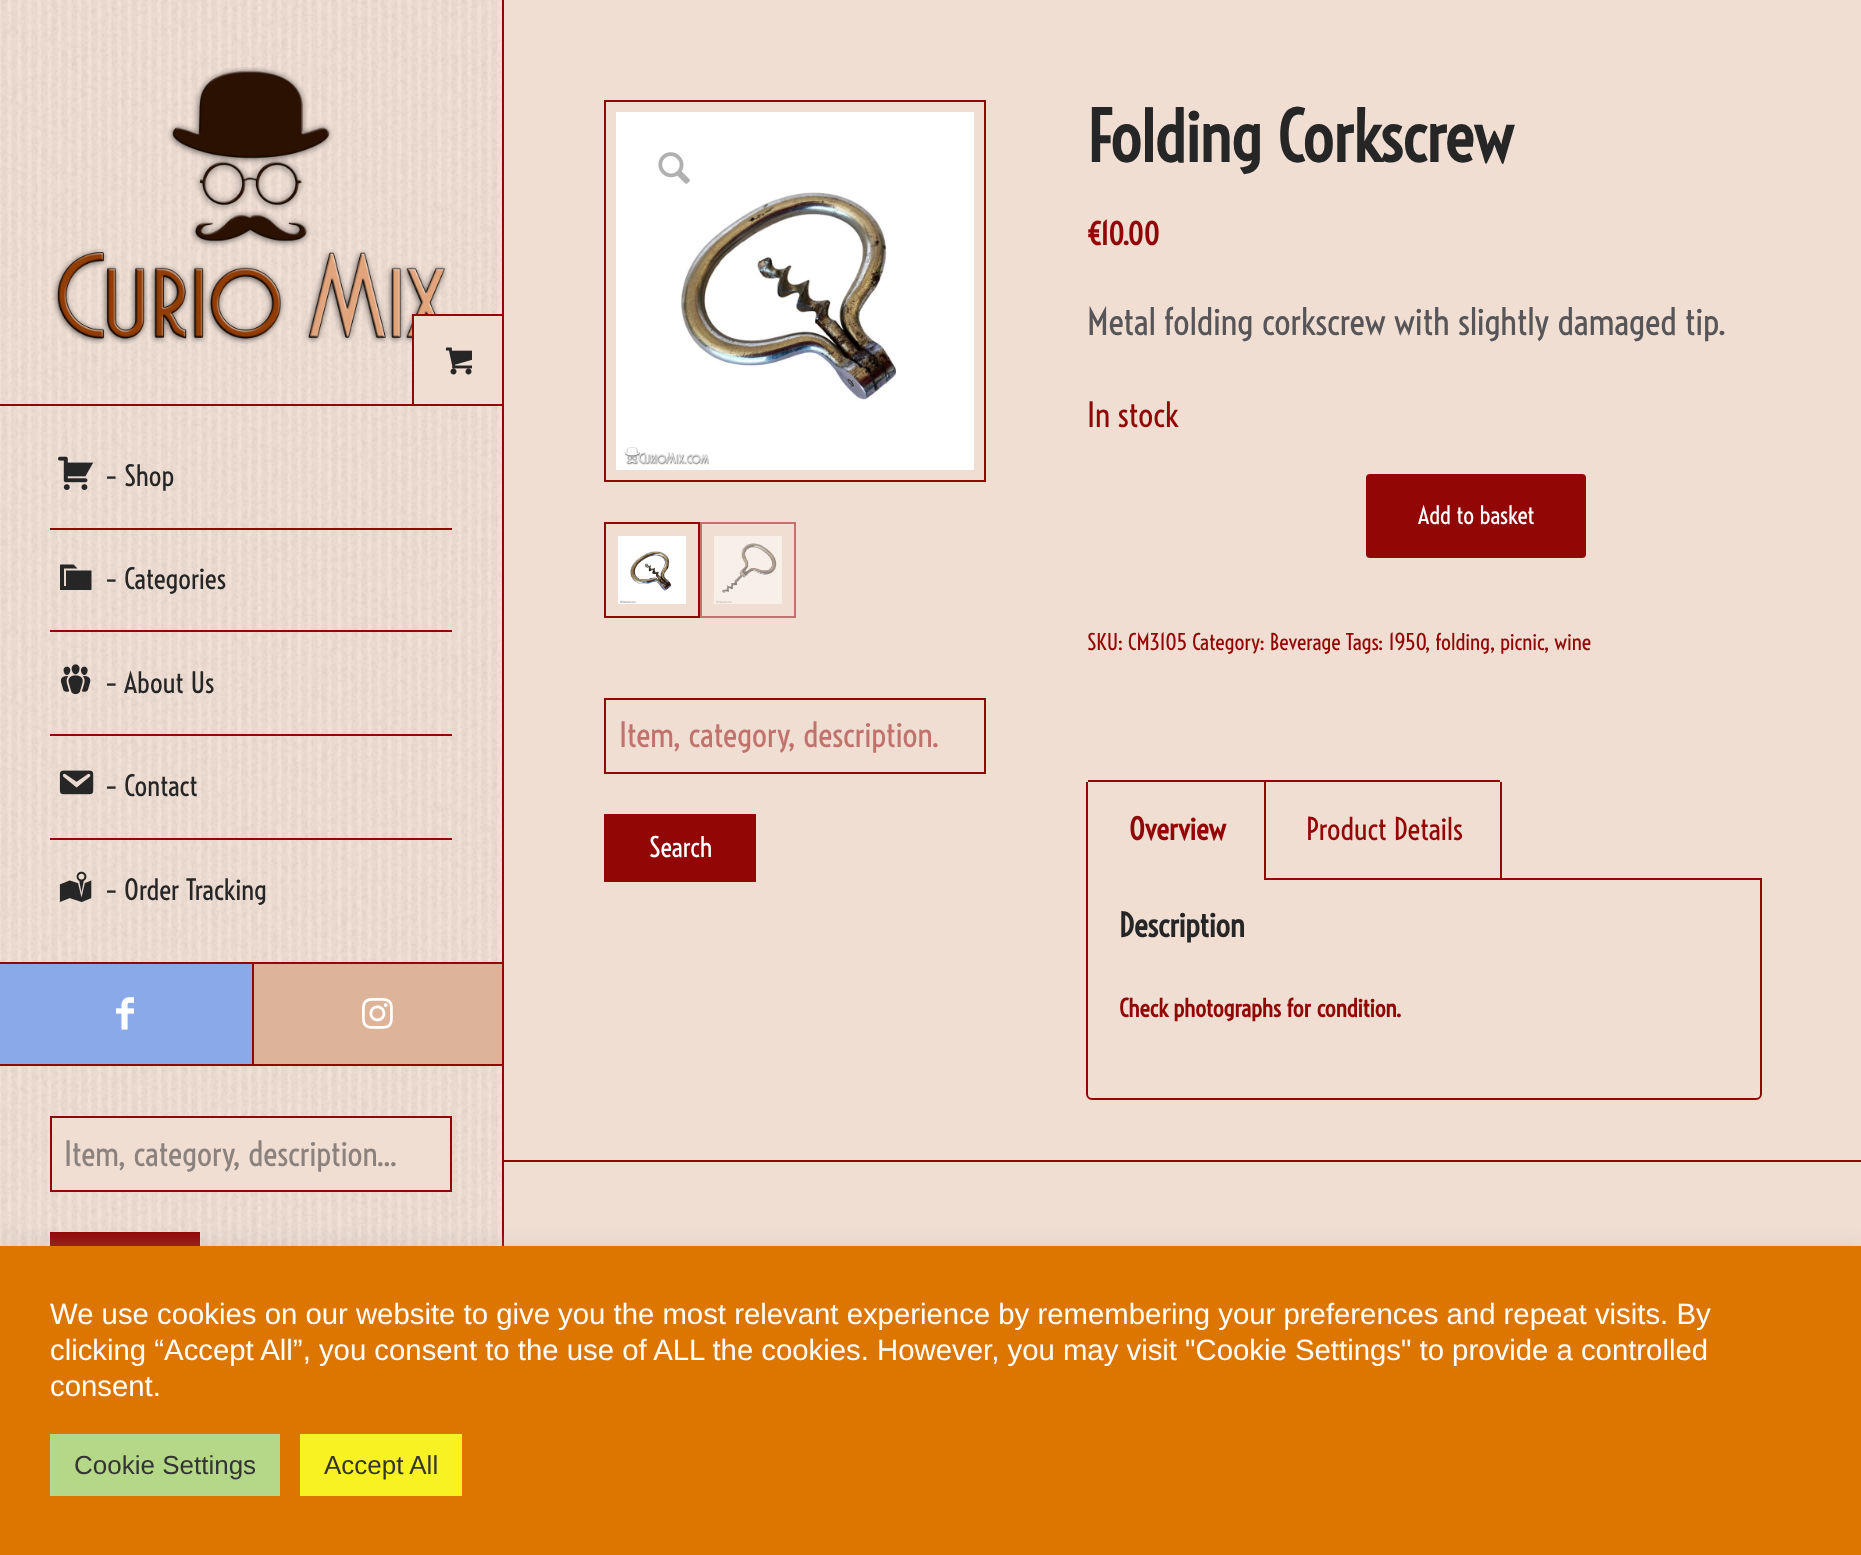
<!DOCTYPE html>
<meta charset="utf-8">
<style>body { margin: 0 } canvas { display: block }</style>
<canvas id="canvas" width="1861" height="1555"></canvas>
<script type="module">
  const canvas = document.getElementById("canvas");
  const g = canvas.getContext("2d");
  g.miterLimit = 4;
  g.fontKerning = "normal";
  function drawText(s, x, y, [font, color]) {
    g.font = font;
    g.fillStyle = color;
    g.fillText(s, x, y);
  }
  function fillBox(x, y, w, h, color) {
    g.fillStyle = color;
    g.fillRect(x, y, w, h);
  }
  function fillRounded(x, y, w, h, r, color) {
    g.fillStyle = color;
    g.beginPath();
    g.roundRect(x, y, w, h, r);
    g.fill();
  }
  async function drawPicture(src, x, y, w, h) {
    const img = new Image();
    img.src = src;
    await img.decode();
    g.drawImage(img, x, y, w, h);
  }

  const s1 = ["28px Voltaire", "#262626"];
  const s2 = ["33.1px Voltaire", "#8B827D"];
  const s3 = ["33.1px Voltaire", "#C1726D"];
  const s4 = ["27px Voltaire", "#FFFFFF"];
  const s5 = ["bold 68px Voltaire", "#262626"];
  const s6 = ["bold 30px Voltaire", "#920606"];
  const s7 = ["36px Voltaire", "#575557"];
  const s8 = ["33.1px Voltaire", "#920606"];
  const s9 = ["24px Voltaire", "#FFFFFF"];
  const s10 = ["22px Voltaire", "#920606"];
  const s11 = ["bold 29.75px Voltaire", "#920606"];
  const s12 = ["29.75px Voltaire", "#920606"];
  const s13 = ["bold 32px Voltaire", "#262626"];
  const s14 = ["bold 24px Voltaire", "#920606"];
  const s15 = ["29.33px Liberation Sans", "#FFFFFF"];
  const s16 = ["26px Liberation Sans", "#333333"];

  fillBox(0, 0, 1861, 1555, "#F0DED3");
  await drawPicture("pic1.png", 0, 0, 502, 1246);
  fillBox(0, 404, 412, 2, "#920606");
  await drawPicture("pic2.png", 52, 67, 395, 277);
  fillBox(502, 0, 2, 1246, "#920606");
  g.strokeStyle = "#920606";
  g.lineWidth = 2;
  g.strokeRect(413, 315, 90, 90);
  fillBox(414, 316, 88, 88, "#F0DED3");
  await drawPicture("pic3.png", 446, 347, 26, 28);
  fillBox(50, 528, 402, 2, "#920606");
  await drawPicture("pic4.png", 58, 456, 36, 34);
  drawText("– Shop", 105, 486, s1);
  fillBox(50, 630, 402, 2, "#920606");
  g.fillStyle = "#262626";
  g.beginPath();
  g.moveTo(66, 570.5);
  g.lineTo(91.5, 570.5);
  g.lineTo(91.5, 590);
  g.lineTo(60, 590);
  g.lineTo(60, 564.5);
  g.lineTo(73.5, 564.5);
  g.lineTo(77.5, 568.5);
  g.lineTo(64, 568.5);
  g.lineTo(64, 586);
  g.lineTo(66, 586);
  g.closePath();
  g.fill();
  drawText("– Categories", 105, 589, s1);
  fillBox(50, 734, 402, 2, "#920606");
  await drawPicture("pic5.png", 60, 664, 31, 31);
  drawText("– About Us", 105, 693, s1);
  fillBox(50, 838, 402, 2, "#920606");
  await drawPicture("pic6.png", 59, 770, 35, 25);
  drawText("– Contact", 105, 796, s1);
  await drawPicture("pic7.png", 59, 871, 33, 32);
  drawText("– Order Tracking", 105, 900, s1);
  fillBox(0, 962, 502, 2, "#920606");
  fillBox(0, 964, 252, 100, "#89A9E8");
  await drawPicture("pic8.png", 116, 997, 18, 33);
  fillBox(254, 964, 248, 100, "#DDB49A");
  fillBox(252, 964, 2, 100, "#920606");
  await drawPicture("pic9.png", 362, 997, 31, 32);
  fillBox(0, 1064, 502, 2, "#920606");
  g.fillStyle = "#F0DED3";
  g.beginPath();
  g.rect(51, 1117, 400, 74);
  g.fill();
  g.stroke();
  drawText("Item, category, description...", 64, 1166, s2);
  fillBox(50, 1232, 150, 14, "#920606");
  g.strokeRect(605, 101, 380, 380);
  await drawPicture("pic10.png", 616, 112, 358, 358);
  g.strokeRect(605, 523, 94, 94);
  await drawPicture("pic11.png", 618, 536, 68, 68);
  g.strokeStyle = "#C1726D";
  g.strokeRect(701, 523, 94, 94);
  await drawPicture("pic12.png", 714, 536, 68, 68);
  await drawPicture("pic13.png", 658, 152, 32, 32);
  g.strokeStyle = "#920606";
  g.strokeRect(605, 699, 380, 74);
  drawText("Item, category, description.", 619, 747, s3);
  fillBox(604, 814, 152, 68, "#920606");
  drawText("Search", 649, 857, s4);
  drawText("Folding Corkscrew", 1087, 162, s5);
  drawText("€", 1087, 245, s6);
  drawText("10.00", 1100, 245, s6);
  drawText("Metal folding corkscrew with slightly damaged tip.", 1087, 335, s7);
  drawText("In stock", 1087, 427, s8);
  fillRounded(1366, 474, 220, 84, 4, "#920606");
  drawText("Add to basket", 1418, 524, s9);
  drawText("SKU: CM3105 Category: Beverage Tags: 1950", 1087, 650, s10);
  drawText(", folding", 1425, 650, s10);
  drawText(", picnic", 1490, 650, s10);
  drawText(", wine", 1544, 650, s10);
  g.beginPath();
  g.roundRect(1087, 879, 674, 220, [0, 0, 5, 5]);
  g.stroke();
  fillBox(1086, 878, 178, 2, "#F0DED3");
  fillBox(1088, 780, 412, 2, "#920606");
  fillBox(1264, 780, 2, 100, "#920606");
  fillBox(1086, 782, 2, 98, "#920606");
  drawText("Overview", 1129, 840, s11);
  fillBox(1500, 782, 2, 98, "#920606");
  drawText("Product Details", 1306, 840, s12);
  drawText("Description", 1119, 937, s13);
  drawText("Check photographs for condition.", 1119, 1017, s14);
  fillBox(504, 1160, 1357, 2, "#920606");
  g.fillStyle = "rgba(172, 171, 171, 0.3)";
  g.filter = "blur(10px)";
  g.beginPath();
  g.rect(0, 1244, 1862, 310);
  g.fill();
  g.filter = "none";
  fillBox(0, 1246, 1861, 309, "#DD7600");
  drawText("We use cookies on our website to give you the most relevant experience by remembering your preferences and repeat visits. By", 50, 1324, s15);
  drawText("clicking “Accept All”, you consent to the use of ALL the cookies. However, you may visit \"Cookie Settings\" to provide a controlled", 50, 1360, s15);
  drawText("consent.", 50, 1396, s15);
  fillBox(50, 1434, 230, 62, "#B4D888");
  drawText("Cookie Settings", 74, 1474, s16);
  fillBox(300, 1434, 162, 62, "#F9F222");
  drawText("Accept All", 324, 1474, s16);
</script>
